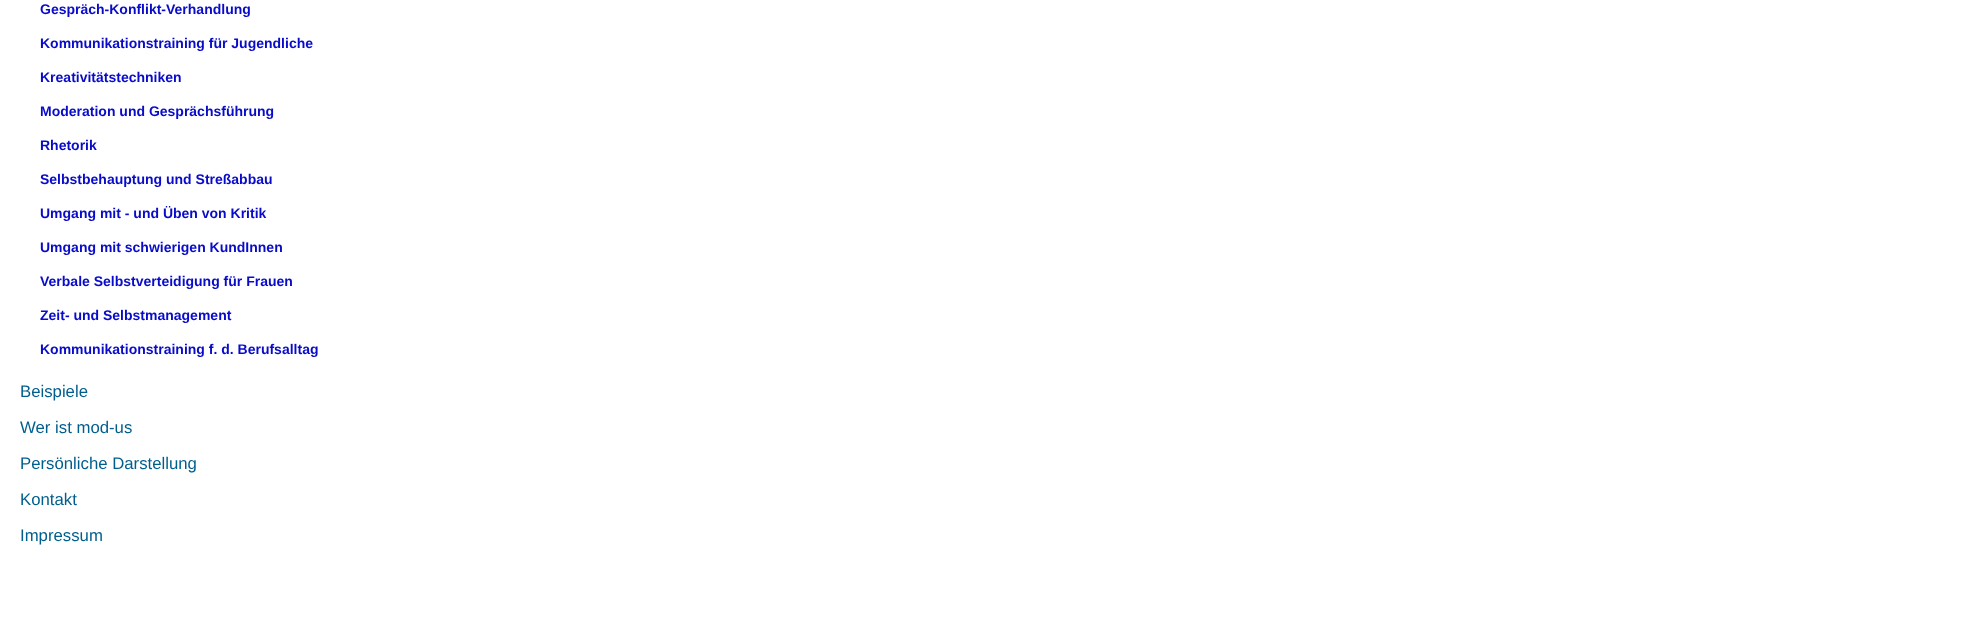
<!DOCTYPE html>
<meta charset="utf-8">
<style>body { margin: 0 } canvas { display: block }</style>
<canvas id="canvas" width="1984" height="624"></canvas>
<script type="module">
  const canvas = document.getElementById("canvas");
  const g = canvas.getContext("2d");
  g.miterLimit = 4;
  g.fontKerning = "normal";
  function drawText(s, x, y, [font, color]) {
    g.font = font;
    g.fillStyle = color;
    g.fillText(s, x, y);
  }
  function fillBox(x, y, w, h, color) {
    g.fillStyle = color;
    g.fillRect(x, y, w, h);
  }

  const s1 = ["bold 14px Liberation Sans", "#080BC9"];
  const s2 = ["16.75px Liberation Sans", "#005E8D"];

  fillBox(0, 0, 1984, 624, "#FFFFFF");
  drawText("Gespräch-Konflikt-Verhandlung", 40, 14, s1);
  drawText("Kommunikationstraining für Jugendliche", 40, 48, s1);
  drawText("Kreativitätstechniken", 40, 82, s1);
  drawText("Moderation und Gesprächsführung", 40, 116, s1);
  drawText("Rhetorik", 40, 150, s1);
  drawText("Selbstbehauptung und Streßabbau", 40, 184, s1);
  drawText("Umgang mit - und Üben von Kritik", 40, 218, s1);
  drawText("Umgang mit schwierigen KundInnen", 40, 252, s1);
  drawText("Verbale Selbstverteidigung für Frauen", 40, 286, s1);
  drawText("Zeit- und Selbstmanagement", 40, 320, s1);
  drawText("Kommunikationstraining f. d. Berufsalltag", 40, 354, s1);
  drawText("Beispiele", 20, 397, s2);
  drawText("Wer ist mod-us", 20, 433, s2);
  drawText("Persönliche Darstellung", 20, 469, s2);
  drawText("Kontakt", 20, 505, s2);
  drawText("Impressum", 20, 541, s2);
</script>
